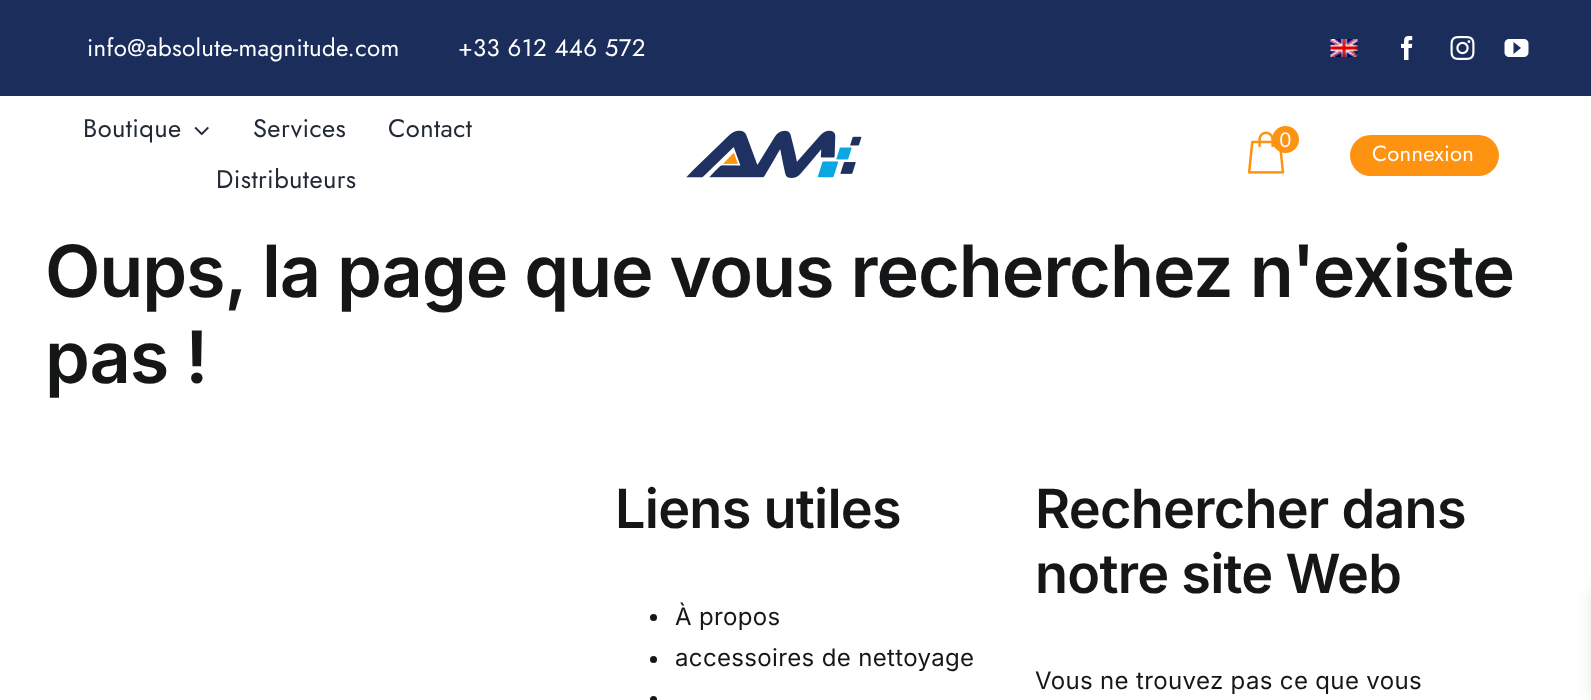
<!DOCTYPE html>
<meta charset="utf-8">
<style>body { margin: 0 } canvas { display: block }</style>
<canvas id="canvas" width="1591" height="700"></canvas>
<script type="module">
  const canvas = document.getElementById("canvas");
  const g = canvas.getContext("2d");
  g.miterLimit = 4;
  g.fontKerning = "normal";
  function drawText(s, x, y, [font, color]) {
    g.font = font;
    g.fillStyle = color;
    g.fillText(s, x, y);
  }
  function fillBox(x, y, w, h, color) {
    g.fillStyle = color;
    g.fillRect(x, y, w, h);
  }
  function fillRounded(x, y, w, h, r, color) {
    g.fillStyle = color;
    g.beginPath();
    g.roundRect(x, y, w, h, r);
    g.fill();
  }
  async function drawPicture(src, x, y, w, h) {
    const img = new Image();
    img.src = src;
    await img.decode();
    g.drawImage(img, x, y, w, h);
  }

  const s1 = ["24px Jost", "#FFFFFF"];
  const s2 = ["25.5px Jost", "#212934"];
  const s3 = ["20px Inter", "#FFFFFF"];
  const s4 = ["22px Jost", "#FFFFFF"];
  const s5 = ["600 72px Inter", "#141617"];
  const s6 = ["600 54px Inter", "#141617"];
  const s7 = ["24px Inter", "#141617"];

  fillBox(0, 0, 1591, 700, "#FFFFFF");
  fillBox(0, 0, 1591, 96, "#1A2D5B");
  g.letterSpacing = "0.35px";
  drawText("info@absolute-magnitude.com", 87, 56, s1);
  drawText("+33 612 446 572", 458, 56, s1);
  await drawPicture("pic1.png", 1330, 39, 28, 18);
  await drawPicture("pic2.png", 1401, 36, 12, 24);
  await drawPicture("pic3.png", 1450, 36, 25, 24);
  await drawPicture("pic4.png", 1504, 39, 25, 18);
  g.letterSpacing = "0.4px";
  drawText("Boutique", 83, 137, s2);
  await drawPicture("pic5.png", 194, 127, 15, 9);
  drawText("Services", 253, 137, s2);
  drawText("Contact", 388, 137, s2);
  drawText("Distributeurs", 216, 188, s2);
  await drawPicture("pic6.png", 686, 130, 176, 48);
  await drawPicture("pic7.png", 1247, 131, 38, 43);
  g.fillStyle = "#FE9211";
  g.beginPath();
  g.arc(1285.5, 139.5, 13.5, 0, Math.PI * 2);
  g.fill();
  g.letterSpacing = "0.35px";
  drawText("0", 1279, 147, s3);
  fillRounded(1350, 135, 149, 41, 20.5, "#FE9211");
  g.letterSpacing = "0.25px";
  drawText("Connexion", 1372, 161, s4);
  g.letterSpacing = "-1.1px";
  drawText("Oups, la page que vous recherchez n'existe", 45, 297, s5);
  drawText("pas !", 45, 383, s5);
  g.letterSpacing = "-0.75px";
  drawText("Liens utiles", 615, 528, s6);
  g.beginPath();
  g.arc(653.5, 617.5, 3.5, 0, Math.PI * 2);
  g.fill();
  g.letterSpacing = "0.35px";
  drawText("À propos", 675, 625, s7);
  g.beginPath();
  g.arc(653.5, 659.5, 3.5, 0, Math.PI * 2);
  g.fill();
  drawText("accessoires de nettoyage", 675, 666, s7);
  fillRounded(650, 696, 7, 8, 3.5, "#141617");
  g.letterSpacing = "-0.75px";
  drawText("Rechercher dans", 1035, 528, s6);
  drawText("notre site Web", 1035, 593, s6);
  g.letterSpacing = "0.35px";
  drawText("Vous ne trouvez pas ce que vous", 1035, 689, s7);
  g.fillStyle = "rgba(0, 0, 0, 0.1)";
  g.filter = "blur(7.5px)";
  g.beginPath();
  g.rect(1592, 590, 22, 109);
  g.fill();
  g.filter = "none";
</script>
